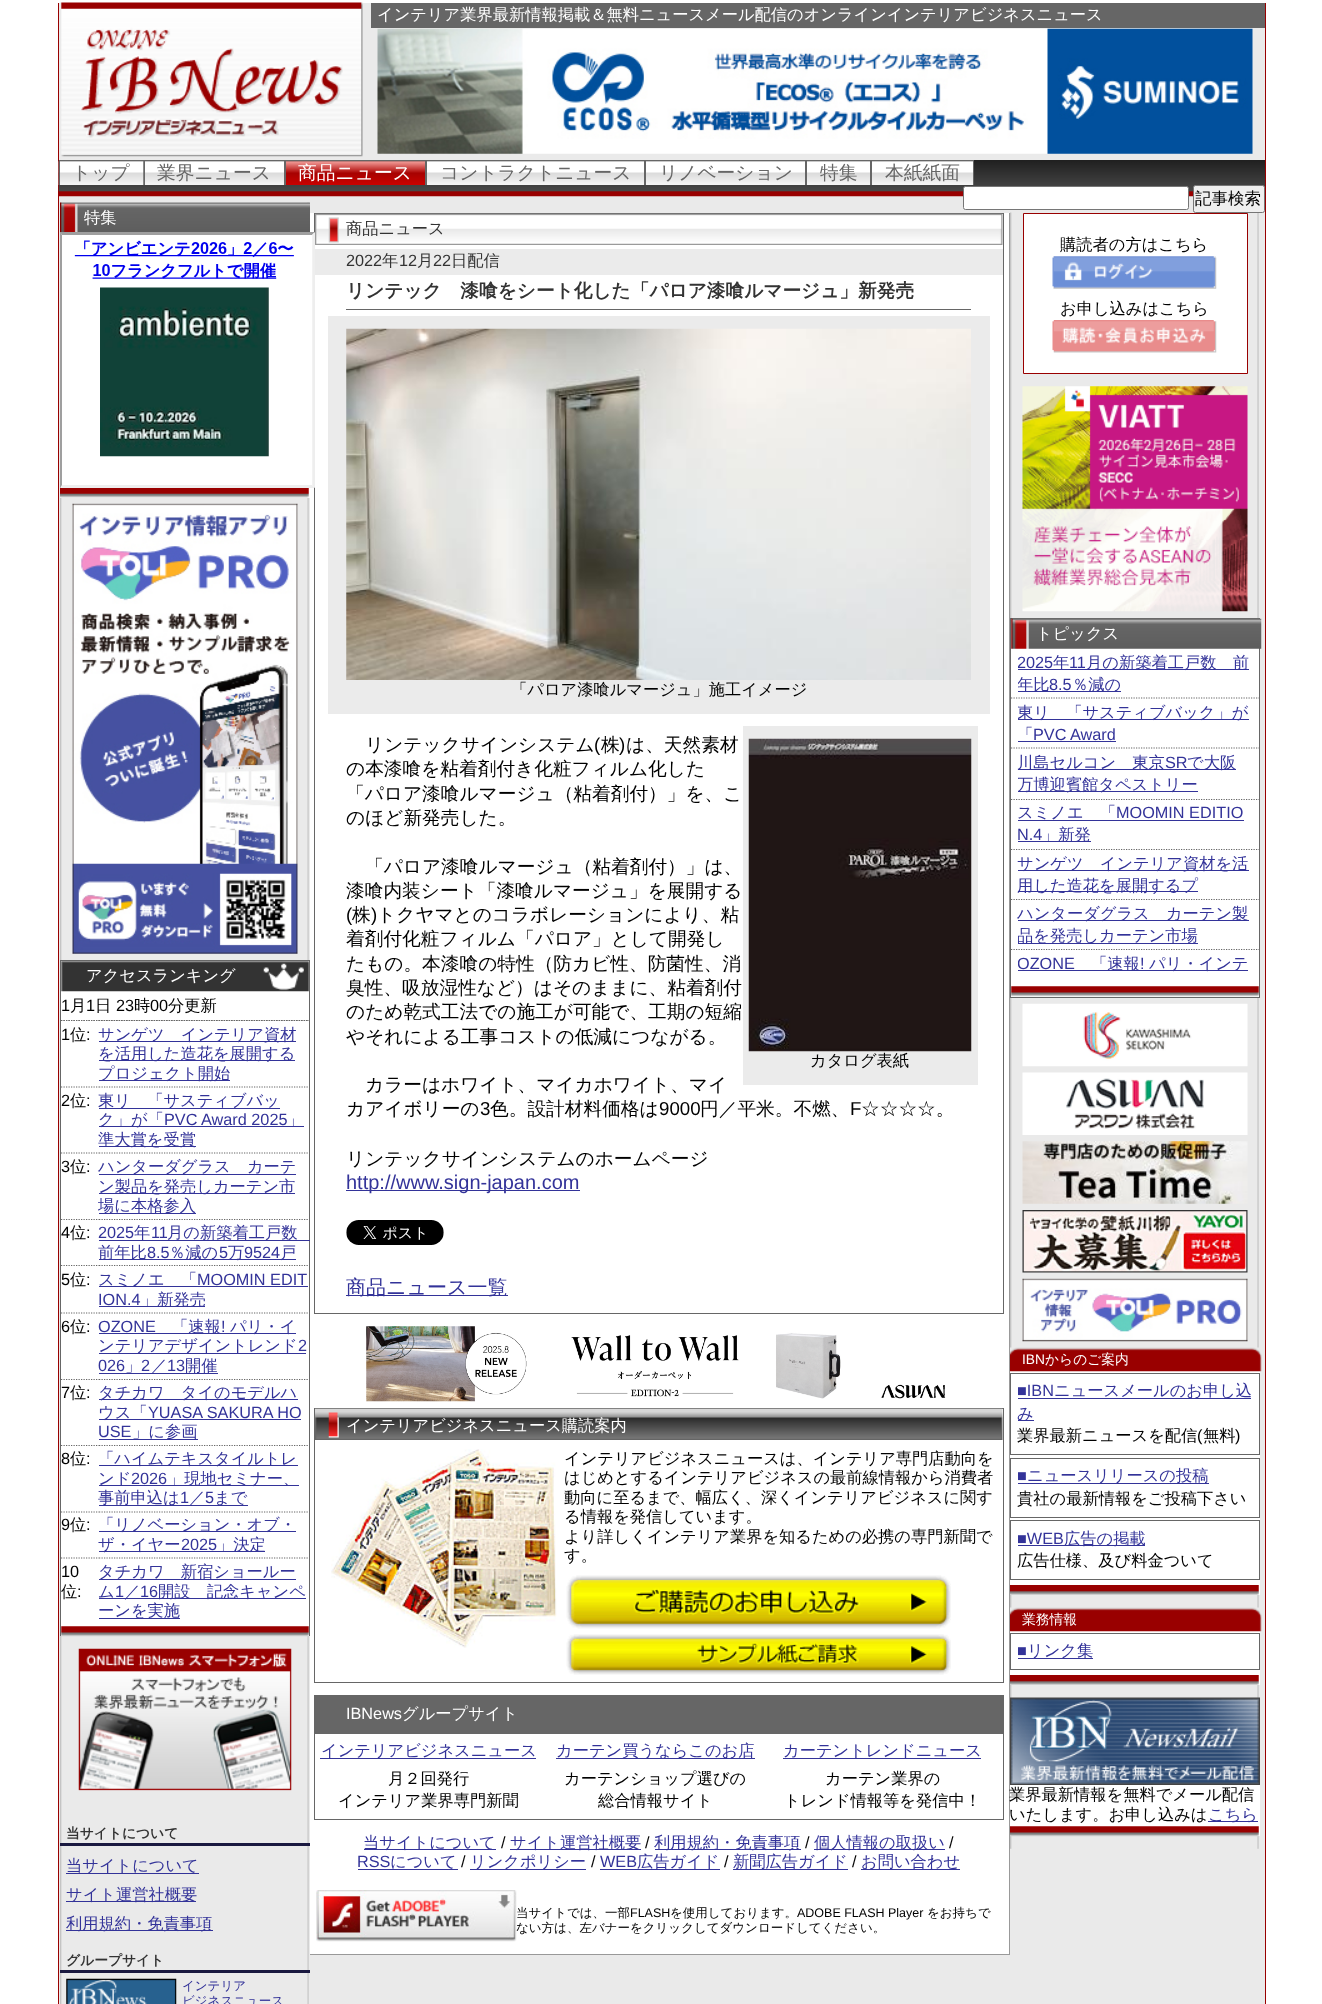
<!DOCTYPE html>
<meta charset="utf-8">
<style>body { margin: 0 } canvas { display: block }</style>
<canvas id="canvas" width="1322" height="2004"></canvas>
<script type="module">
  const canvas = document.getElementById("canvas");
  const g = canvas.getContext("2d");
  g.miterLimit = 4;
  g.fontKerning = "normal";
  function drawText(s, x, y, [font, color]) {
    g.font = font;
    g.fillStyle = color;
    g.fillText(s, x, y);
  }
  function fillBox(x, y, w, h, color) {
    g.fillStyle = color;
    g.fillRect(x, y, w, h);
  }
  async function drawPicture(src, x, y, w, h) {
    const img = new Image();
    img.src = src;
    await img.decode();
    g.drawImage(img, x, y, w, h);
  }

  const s1 = ["500 16.25px WenQuanYi Zen Hei", "#FFFFFF"];
  const s2 = ["500 18.75px WenQuanYi Zen Hei", "#666666"];
  const s3 = ["500 18.75px WenQuanYi Zen Hei", "#FFFFFF"];
  const s4 = ["500 16.5px WenQuanYi Zen Hei", "#000000"];
  const s5 = ["16.25px Liberation Sans", "#000000"];
  const s6 = ["500 16.25px WenQuanYi Zen Hei", "#000000"];
  const s7 = ["500 16.25px WenQuanYi Zen Hei", "#333399"];
  const s8 = ["16.25px Liberation Sans", "#333399"];
  const s9 = ["bold 13.75px WenQuanYi Zen Hei", "#333333"];
  const s10 = ["500 12.5px WenQuanYi Zen Hei", "#333399"];
  const s11 = ["500 16.25px WenQuanYi Zen Hei", "#333333"];
  const s12 = ["16.25px Liberation Sans", "#333333"];
  const s13 = ["bold 18.7px WenQuanYi Zen Hei", "#333333"];
  const s14 = ["500 18.7px WenQuanYi Zen Hei", "#000000"];
  const s15 = ["18.7px Liberation Sans", "#000000"];
  const s16 = ["20px Liberation Sans", "#333399"];
  const s17 = ["500 20px WenQuanYi Zen Hei", "#333399"];
  const s18 = ["16.25px Liberation Sans", "#FFFFFF"];
  const s19 = ["500 12.5px WenQuanYi Zen Hei", "#000000"];
  const s20 = ["12.5px Liberation Sans", "#000000"];
  const s21 = ["13.75px Liberation Sans", "#FFFFFF"];
  const s22 = ["500 13.75px WenQuanYi Zen Hei", "#FFFFFF"];

  fillBox(0, 0, 1322, 2004, "#FFFFFF");
  fillBox(59, 3, 1206, 2001, "#EAEAEA");
  fillBox(1265, 3, 1, 2001, "#990000");
  fillBox(58, 3, 1, 2001, "#990000");
  await drawPicture("pic1.png", 60, 2, 303, 155);
  fillBox(371, 3, 894, 25, "#666666");
  drawText("インテリア業界最新情報掲載＆無料ニュースメール配信のオンラインインテリアビジネスニュース", 377, 20, s1);
  await drawPicture("pic2.png", 377, 28, 876, 126);
  await drawPicture("pic3.png", 58, 160, 1207, 37);
  await drawPicture("pic4.png", 58, 161, 85, 24);
  fillBox(59, 160, 915, 1, "#666666");
  fillBox(143, 160, 1, 25, "#666666");
  fillBox(59, 160, 1, 25, "#666666");
  drawText("トップ", 72, 179, s2);
  await drawPicture("pic5.png", 143, 161, 141, 24);
  fillBox(284, 160, 2, 25, "#666666");
  fillBox(144, 160, 1, 25, "#666666");
  drawText("業界ニュース", 157, 179, s2);
  await drawPicture("pic6.png", 286, 161, 139, 24);
  fillBox(425, 160, 2, 25, "#666666");
  drawText("商品ニュース", 298, 179, s3);
  await drawPicture("pic7.png", 427, 161, 217, 24);
  fillBox(644, 160, 2, 25, "#666666");
  drawText("コントラクトニュース", 440, 179, s2);
  await drawPicture("pic8.png", 646, 161, 159, 24);
  fillBox(805, 160, 2, 25, "#666666");
  drawText("リノベーション", 659, 179, s2);
  await drawPicture("pic9.png", 807, 161, 63, 24);
  fillBox(870, 160, 2, 25, "#666666");
  drawText("特集", 820, 179, s2);
  await drawPicture("pic10.png", 872, 161, 101, 24);
  fillBox(973, 160, 1, 25, "#666666");
  drawText("本紙紙面", 885, 179, s2);
  g.fillStyle = "#FFFFFF";
  g.beginPath();
  g.roundRect(963.5, 186.5, 225, 23, 2);
  g.fill();
  g.strokeStyle = "#767676";
  g.stroke();
  await drawPicture("pic30.png", 1010, 212, 249, 1637);
  g.fillStyle = "#EFEFEF";
  g.beginPath();
  g.roundRect(1193.5, 185.5, 71, 27, 2);
  g.fill();
  g.stroke();
  drawText("記事検索", 1195, 204, s4);
  await drawPicture("pic11.png", 60, 202, 249, 1802);
  fillBox(60, 232, 250, 266, "#FFFFFF");
  await drawPicture("pic12.png", 60, 487, 249, 11);
  await drawPicture("pic13.png", 60, 202, 250, 31);
  drawText("特集", 84, 223, s1);
  fillBox(61, 961, 248, 675, "#FFFFFF");
  fillBox(60, 960, 250, 1, "#666666");
  fillBox(309, 960, 1, 676, "#666666");
  fillBox(99, 1240, 215, 1, "#333399");
  fillBox(310, 213, 699, 1741, "#FFFFFF");
  g.strokeStyle = "#666666";
  g.strokeRect(314.5, 213.5, 689, 1100);
  g.fillStyle = "#9F9F9F";
  g.beginPath();
  g.moveTo(60, 232);
  g.lineTo(315, 232);
  g.lineTo(312, 235);
  g.lineTo(62, 235);
  g.closePath();
  g.fill();
  g.fillStyle = "#EEEEEE";
  g.beginPath();
  g.moveTo(315, 232);
  g.lineTo(315, 488);
  g.lineTo(312, 485);
  g.lineTo(312, 235);
  g.closePath();
  g.fill();
  g.beginPath();
  g.moveTo(315, 488);
  g.lineTo(60, 488);
  g.lineTo(62, 485);
  g.lineTo(312, 485);
  g.closePath();
  g.fill();
  g.fillStyle = "#9F9F9F";
  g.beginPath();
  g.moveTo(60, 488);
  g.lineTo(60, 232);
  g.lineTo(62, 235);
  g.lineTo(62, 485);
  g.closePath();
  g.fill();
  await drawPicture("pic14.png", 74, 235, 239, 250);
  await drawPicture("pic15.png", 72, 503, 226, 451);
  await drawPicture("pic16.png", 61, 1626, 248, 11);
  fillBox(60, 960, 1, 676, "#666666");
  await drawPicture("pic17.png", 61, 961, 248, 31);
  drawText("アクセスランキング", 86, 981, s1);
  drawText("1", 61, 1011, s5);
  drawText("月", 70, 1011, s6);
  drawText("1", 86, 1011, s5);
  drawText("日", 95, 1011, s6);
  drawText("23", 116, 1011, s5);
  drawText("時", 134, 1011, s6);
  drawText("00", 150, 1011, s5);
  drawText("分更新", 168, 1011, s6);
  g.beginPath();
  g.moveTo(61, 1020.5);
  g.lineTo(309, 1020.5);
  g.lineWidth = 1.2;
  g.setLineDash([1.25, 1.25]);
  g.stroke();
  g.beginPath();
  g.moveTo(61, 1020.5);
  g.lineTo(99, 1020.5);
  g.stroke();
  drawText("1", 61, 1040, s5);
  drawText("位", 70, 1040, s6);
  drawText(":", 86, 1040, s5);
  g.beginPath();
  g.moveTo(99, 1020.5);
  g.lineTo(309, 1020.5);
  g.stroke();
  fillBox(99, 1041, 197, 1, "#333399");
  drawText("サンゲツ　インテリア資材", 98, 1040, s7);
  fillBox(99, 1060, 196, 1, "#333399");
  drawText("を活用した造花を展開する", 98, 1059, s7);
  fillBox(99, 1080, 131, 1, "#333399");
  drawText("プロジェクト開始", 98, 1079, s7);
  g.beginPath();
  g.moveTo(61, 1087);
  g.lineTo(99, 1087);
  g.stroke();
  drawText("2", 61, 1106, s5);
  drawText("位", 70, 1106, s6);
  drawText(":", 86, 1106, s5);
  g.beginPath();
  g.moveTo(99, 1087);
  g.lineTo(309, 1087);
  g.stroke();
  fillBox(99, 1108, 181, 1, "#333399");
  drawText("東リ　「サスティブバッ", 98, 1106, s7);
  fillBox(99, 1126, 205, 1, "#333399");
  drawText("ク」が「", 98, 1125, s7);
  drawText("PVC Award 2025", 164, 1125, s8);
  drawText("」", 287, 1125, s7);
  fillBox(99, 1146, 97, 1, "#333399");
  drawText("準大賞を受賞", 98, 1145, s7);
  g.beginPath();
  g.moveTo(61, 1153);
  g.lineTo(99, 1153);
  g.stroke();
  drawText("3", 61, 1172, s5);
  drawText("位", 70, 1172, s6);
  drawText(":", 86, 1172, s5);
  g.beginPath();
  g.moveTo(99, 1153);
  g.lineTo(309, 1153);
  g.stroke();
  fillBox(99, 1174, 197, 1, "#333399");
  drawText("ハンターダグラス　カーテ", 98, 1172, s7);
  fillBox(99, 1193, 196, 1, "#333399");
  drawText("ン製品を発売しカーテン市", 98, 1192, s7);
  fillBox(99, 1213, 97, 1, "#333399");
  drawText("場に本格参入", 98, 1211, s7);
  g.beginPath();
  g.moveTo(61, 1219.5);
  g.lineTo(99, 1219.5);
  g.stroke();
  drawText("4", 61, 1238, s5);
  drawText("位", 70, 1238, s6);
  drawText(":", 86, 1238, s5);
  g.beginPath();
  g.moveTo(99, 1219.5);
  g.lineTo(309, 1219.5);
  g.stroke();
  drawText("2025", 98, 1238, s8);
  drawText("年", 134, 1238, s7);
  drawText("11", 151, 1238, s8);
  drawText("月の新築着工戸数", 167, 1238, s7);
  fillBox(99, 1259, 197, 1, "#333399");
  drawText("前年比", 98, 1258, s7);
  drawText("8.5", 147, 1258, s8);
  drawText("％減の", 169, 1258, s7);
  drawText("5", 219, 1258, s8);
  drawText("万", 228, 1258, s7);
  drawText("9524", 244, 1258, s8);
  drawText("戸", 280, 1258, s7);
  g.beginPath();
  g.moveTo(61, 1265.5);
  g.lineTo(99, 1265.5);
  g.stroke();
  drawText("5", 61, 1285, s5);
  drawText("位", 70, 1285, s6);
  drawText(":", 86, 1285, s5);
  g.beginPath();
  g.moveTo(99, 1265.5);
  g.lineTo(309, 1265.5);
  g.stroke();
  fillBox(99, 1286, 209, 1, "#333399");
  drawText("スミノエ　「", 98, 1285, s7);
  drawText("MOOMIN EDIT", 197, 1285, s8);
  drawText("ION.4", 98, 1305, s8);
  fillBox(99, 1306, 106, 1, "#333399");
  drawText("」新発売", 141, 1305, s7);
  g.beginPath();
  g.moveTo(61, 1313);
  g.lineTo(99, 1313);
  g.stroke();
  drawText("6", 61, 1332, s5);
  drawText("位", 70, 1332, s6);
  drawText(":", 86, 1332, s5);
  g.beginPath();
  g.moveTo(99, 1313);
  g.lineTo(309, 1313);
  g.stroke();
  drawText("OZONE", 98, 1332, s8);
  fillBox(99, 1333, 197, 1, "#333399");
  drawText("「速報", 172, 1332, s7);
  drawText("!", 221, 1332, s8);
  drawText("パリ・イ", 230, 1332, s7);
  fillBox(99, 1353, 207, 1, "#333399");
  drawText("ンテリアデザイントレンド", 98, 1351, s7);
  drawText("2", 298, 1351, s8);
  drawText("026", 98, 1371, s8);
  drawText("」", 125, 1371, s7);
  fillBox(99, 1373, 119, 1, "#333399");
  drawText("2", 141, 1371, s8);
  drawText("／", 151, 1371, s7);
  drawText("13", 167, 1371, s8);
  drawText("開催", 185, 1371, s7);
  g.beginPath();
  g.moveTo(61, 1379.5);
  g.lineTo(99, 1379.5);
  g.stroke();
  drawText("7", 61, 1398, s5);
  drawText("位", 70, 1398, s6);
  drawText(":", 86, 1398, s5);
  g.beginPath();
  g.moveTo(99, 1379.5);
  g.lineTo(309, 1379.5);
  g.stroke();
  fillBox(99, 1399, 199, 1, "#333399");
  drawText("タチカワ　タイのモデルハ", 98, 1398, s7);
  fillBox(99, 1419, 202, 1, "#333399");
  drawText("ウス「", 98, 1418, s7);
  drawText("YUASA SAKURA HO", 148, 1418, s8);
  drawText("USE", 98, 1437, s8);
  fillBox(99, 1439, 99, 1, "#333399");
  drawText("」に参画", 132, 1437, s7);
  g.beginPath();
  g.moveTo(61, 1445.5);
  g.lineTo(99, 1445.5);
  g.stroke();
  drawText("8", 61, 1464, s5);
  drawText("位", 70, 1464, s6);
  drawText(":", 86, 1464, s5);
  g.beginPath();
  g.moveTo(99, 1445.5);
  g.lineTo(309, 1445.5);
  g.stroke();
  fillBox(99, 1465, 199, 1, "#333399");
  drawText("「ハイムテキスタイルトレ", 98, 1464, s7);
  fillBox(99, 1485, 200, 1, "#333399");
  drawText("ンド", 98, 1484, s7);
  drawText("2026", 131, 1484, s8);
  drawText("」現地セミナー、", 168, 1484, s7);
  fillBox(99, 1505, 149, 1, "#333399");
  drawText("事前申込は", 98, 1503, s7);
  drawText("1", 180, 1503, s8);
  drawText("／", 189, 1503, s7);
  drawText("5", 205, 1503, s8);
  drawText("まで", 214, 1503, s7);
  g.beginPath();
  g.moveTo(61, 1512);
  g.lineTo(99, 1512);
  g.stroke();
  drawText("9", 61, 1530, s5);
  drawText("位", 70, 1530, s6);
  drawText(":", 86, 1530, s5);
  g.beginPath();
  g.moveTo(99, 1512);
  g.lineTo(309, 1512);
  g.stroke();
  fillBox(99, 1531, 197, 1, "#333399");
  drawText("「リノベーション・オブ・", 98, 1530, s7);
  fillBox(99, 1551, 166, 1, "#333399");
  drawText("ザ・イヤー", 98, 1550, s7);
  drawText("2025", 181, 1550, s8);
  drawText("」決定", 217, 1550, s7);
  g.beginPath();
  g.moveTo(61, 1558);
  g.lineTo(99, 1558);
  g.stroke();
  drawText("10", 61, 1577, s5);
  drawText("位", 61, 1597, s6);
  drawText(":", 77, 1597, s5);
  g.beginPath();
  g.moveTo(99, 1558);
  g.lineTo(309, 1558);
  g.stroke();
  fillBox(99, 1579, 197, 1, "#333399");
  drawText("タチカワ　新宿ショールー", 98, 1577, s7);
  drawText("ム", 98, 1597, s7);
  drawText("1", 115, 1597, s8);
  fillBox(99, 1598, 207, 1, "#333399");
  drawText("／", 124, 1597, s7);
  drawText("16", 140, 1597, s8);
  drawText("開設　記念キャンペ", 158, 1597, s7);
  fillBox(99, 1618, 81, 1, "#333399");
  drawText("ーンを実施", 98, 1616, s7);
  await drawPicture("pic18.png", 78, 1648, 214, 143);
  fillBox(60, 1843, 250, 3, "#1A1940");
  drawText("当サイトについて", 66, 1838, s9);
  fillBox(66, 1873, 133, 1, "#333399");
  drawText("当サイトについて", 66, 1871, s7);
  fillBox(66, 1901, 130, 1, "#333399");
  drawText("サイト運営社概要", 66, 1900, s7);
  fillBox(66, 1930, 147, 1, "#333399");
  drawText("利用規約・免責事項", 66, 1929, s7);
  fillBox(60, 1970, 250, 3, "#1A1940");
  drawText("グループサイト", 66, 1965, s9);
  await drawPicture("pic19.png", 66, 1978, 111, 26);
  drawText("インテリア", 182, 1990, s10);
  drawText("ビジネスニュース", 182, 2005, s10);
  fillBox(1009, 213, 1, 1742, "#999999");
  fillBox(310, 1954, 700, 1, "#999999");
  await drawPicture("pic20.png", 315, 213, 688, 32);
  drawText("商品ニュース", 346, 234, s11);
  fillBox(315, 249, 688, 26, "#EBEBEB");
  drawText("2022", 346, 266, s12);
  drawText("年", 382, 266, s11);
  drawText("12", 399, 266, s12);
  drawText("月", 417, 266, s11);
  drawText("22", 433, 266, s12);
  drawText("日配信", 451, 266, s11);
  fillBox(346, 309, 625, 1, "#666666");
  drawText("リンテック　漆喰をシート化した「パロア漆喰ルマージュ」新発売", 346, 297, s13);
  fillBox(328, 316, 662, 398, "#EBEBEB");
  await drawPicture("pic21.png", 346, 328, 625, 352);
  drawText("「パロア漆喰ルマージュ」施工イメージ", 511, 695, s6);
  drawText("リンテックサインシステム", 365, 751, s14);
  drawText("(", 594, 751, s15);
  drawText("株", 601, 751, s14);
  drawText(")", 619, 751, s15);
  drawText("は、天然素材", 626, 751, s14);
  drawText("の本漆喰を粘着剤付き化粧フィルム化した", 346, 775, s14);
  drawText("「パロア漆喰ルマージュ（粘着剤付）」を、こ", 346, 800, s14);
  drawText("のほど新発売した。", 346, 824, s14);
  drawText("「パロア漆喰ルマージュ（粘着剤付）」は、", 365, 873, s14);
  drawText("漆喰内装シート「漆喰ルマージュ」を展開する", 346, 897, s14);
  drawText("(", 346, 921, s15);
  drawText("株", 352, 921, s14);
  drawText(")", 371, 921, s15);
  drawText("トクヤマとのコラボレーションにより、粘", 377, 921, s14);
  drawText("着剤付化粧フィルム「パロア」として開発し", 346, 945, s14);
  drawText("たもの。本漆喰の特性（防カビ性、防菌性、消", 346, 970, s14);
  drawText("臭性、吸放湿性など）はそのままに、粘着剤付", 346, 994, s14);
  drawText("のため乾式工法での施工が可能で、工期の短縮", 346, 1018, s14);
  drawText("やそれによる工事コストの低減につながる。", 346, 1043, s14);
  drawText("カラーはホワイト、マイカホワイト、マイ", 365, 1091, s14);
  drawText("カアイボリーの", 346, 1115, s14);
  drawText("3", 480, 1115, s15);
  drawText("色。設計材料価格は", 490, 1115, s14);
  drawText("9000", 659, 1115, s15);
  drawText("円／平米。不燃、", 700, 1115, s14);
  drawText("F", 850, 1115, s15);
  drawText("☆☆☆☆。", 861, 1115, s14);
  fillBox(743, 726, 235, 359, "#EBEBEB");
  await drawPicture("pic22.png", 748, 738, 224, 314);
  drawText("カタログ表紙", 810, 1066, s6);
  drawText("リンテックサインシステムのホームページ", 346, 1165, s14);
  fillBox(346, 1190, 234, 1, "#333399");
  drawText("http://www.sign-japan.com", 346, 1189, s16);
  await drawPicture("pic23.png", 346, 1220, 98, 25);
  fillBox(346, 1295, 162, 1, "#333399");
  drawText("商品ニュース一覧", 346, 1294, s17);
  await drawPicture("pic24.png", 366, 1326, 580, 76);
  g.lineWidth = 1;
  g.setLineDash([]);
  g.strokeRect(314.5, 1408.5, 689, 274);
  await drawPicture("pic25.png", 315, 1408, 688, 32);
  drawText("インテリアビジネスニュース購読案内", 346, 1431, s1);
  await drawPicture("pic26.png", 331, 1449, 226, 199);
  drawText("インテリアビジネスニュースは、インテリア専門店動向を", 564, 1464, s6);
  drawText("はじめとするインテリアビジネスの最前線情報から消費者", 564, 1483, s6);
  drawText("動向に至るまで、幅広く、深くインテリアビジネスに関す", 564, 1503, s6);
  drawText("る情報を発信しています。", 564, 1522, s6);
  drawText("より詳しくインテリア業界を知るための必携の専門新聞で", 564, 1542, s6);
  drawText("す。", 564, 1561, s6);
  await drawPicture("pic27.png", 566, 1575, 385, 54);
  await drawPicture("pic28.png", 566, 1634, 385, 41);
  g.strokeRect(314.5, 1695.5, 689, 124);
  fillBox(315, 1696, 688, 38, "#666666");
  drawText("IBNews", 346, 1719, s18);
  drawText("グループサイト", 402, 1719, s1);
  fillBox(320, 1758, 216, 1, "#333399");
  drawText("インテリアビジネスニュース", 321, 1756, s7);
  drawText("月２回発行", 388, 1784, s6);
  drawText("インテリア業界専門新聞", 338, 1806, s6);
  fillBox(556, 1758, 199, 1, "#333399");
  drawText("カーテン買うならこのお店", 556, 1756, s7);
  drawText("カーテンショップ選びの", 564, 1784, s6);
  drawText("総合情報サイト", 598, 1806, s6);
  fillBox(783, 1758, 198, 1, "#333399");
  drawText("カーテントレンドニュース", 783, 1756, s7);
  drawText("カーテン業界の", 825, 1784, s6);
  drawText("トレンド情報等を発信中！", 784, 1806, s6);
  fillBox(364, 1849, 132, 1, "#333399");
  drawText("当サイトについて", 363, 1848, s7);
  drawText("/", 501, 1848, s5);
  fillBox(510, 1849, 131, 1, "#333399");
  drawText("サイト運営社概要", 510, 1848, s7);
  drawText("/", 645, 1848, s5);
  fillBox(655, 1849, 146, 1, "#333399");
  drawText("利用規約・免責事項", 654, 1848, s7);
  drawText("/", 805, 1848, s5);
  fillBox(814, 1849, 131, 1, "#333399");
  drawText("個人情報の取扱い", 814, 1848, s7);
  drawText("/", 949, 1848, s5);
  drawText("RSS", 357, 1867, s8);
  drawText("について", 390, 1867, s7);
  fillBox(358, 1869, 100, 1, "#333399");
  drawText("/", 461, 1867, s5);
  fillBox(470, 1869, 116, 1, "#333399");
  drawText("リンクポリシー", 470, 1867, s7);
  drawText("/", 591, 1867, s5);
  drawText("WEB", 600, 1867, s8);
  fillBox(600, 1869, 120, 1, "#333399");
  drawText("広告ガイド", 637, 1867, s7);
  drawText("/", 724, 1867, s5);
  fillBox(733, 1869, 115, 1, "#333399");
  drawText("新聞広告ガイド", 733, 1867, s7);
  drawText("/", 852, 1867, s5);
  fillBox(861, 1869, 99, 1, "#333399");
  drawText("お問い合わせ", 861, 1867, s7);
  await drawPicture("pic29.png", 316, 1890, 201, 52);
  drawText("当サイトでは、一部", 516, 1917, s19);
  drawText("FLASH", 630, 1917, s20);
  drawText("を使用しております。", 670, 1917, s19);
  drawText("ADOBE FLASH Player", 797, 1917, s20);
  drawText("をお持ちで", 927, 1917, s19);
  drawText("ない方は、左バナーをクリックしてダウンロードしてください。", 516, 1932, s19);
  g.fillStyle = "#FFFFFF";
  g.beginPath();
  g.rect(1023.5, 213.5, 224, 160);
  g.fill();
  g.strokeStyle = "#990000";
  g.stroke();
  drawText("購読者の方はこちら", 1060, 250, s6);
  fillBox(1053, 256, 163, 33, "#EFEFEF");
  await drawPicture("pic31.png", 1052, 256, 165, 33);
  drawText("お申し込みはこちら", 1060, 314, s6);
  await drawPicture("pic32.png", 1052, 320, 165, 33);
  await drawPicture("pic33.png", 1022, 386, 226, 226);
  fillBox(1011, 619, 248, 378, "#FFFFFF");
  await drawPicture("pic34.png", 1011, 986, 248, 11);
  g.strokeStyle = "#666666";
  g.strokeRect(1010.5, 618.5, 249, 379);
  await drawPicture("pic35.png", 1011, 618, 251, 31);
  drawText("トピックス", 1036, 639, s1);
  g.beginPath();
  g.moveTo(1011, 698);
  g.lineTo(1259, 698);
  g.lineWidth = 1.2;
  g.setLineDash([1.25, 1.25]);
  g.stroke();
  g.save();
  g.beginPath();
  g.rect(1018, 651, 235, 44);
  g.clip();
  drawText("2025", 1017, 668, s8);
  g.restore();
  fillBox(1018, 669, 231, 1, "#333399");
  drawText("年", 1053, 668, s7);
  drawText("11", 1069, 668, s8);
  drawText("月の新築着工戸数　前", 1086, 668, s7);
  fillBox(1018, 691, 103, 1, "#333399");
  g.save();
  g.beginPath();
  g.rect(1018, 651, 235, 44);
  g.clip();
  drawText("年比", 1017, 690, s7);
  g.restore();
  drawText("8.5", 1049, 690, s8);
  drawText("％減の", 1072, 690, s7);
  g.beginPath();
  g.moveTo(1011, 748);
  g.lineTo(1259, 748);
  g.stroke();
  fillBox(1018, 719, 231, 1, "#333399");
  g.save();
  g.beginPath();
  g.rect(1018, 701, 235, 44);
  g.clip();
  drawText("東リ　「サスティブバック」が", 1017, 718, s7);
  g.restore();
  drawText("「", 1017, 740, s7);
  drawText("PVC Award", 1033, 740, s8);
  fillBox(1018, 741, 98, 1, "#333399");
  g.beginPath();
  g.moveTo(1011, 799.5);
  g.lineTo(1259, 799.5);
  g.stroke();
  fillBox(1018, 769, 218, 1, "#333399");
  drawText("川島セルコン　東京", 1017, 768, s7);
  drawText("SR", 1165, 768, s8);
  drawText("で大阪", 1187, 768, s7);
  fillBox(1018, 791, 180, 1, "#333399");
  g.save();
  g.beginPath();
  g.rect(1018, 751, 235, 45);
  g.clip();
  drawText("万博迎賓館タペストリー", 1017, 790, s7);
  g.restore();
  fillBox(1011, 800, 248, 1, "#FFFFFF");
  g.beginPath();
  g.moveTo(1011, 849.5);
  g.lineTo(1259, 849.5);
  g.stroke();
  drawText("スミノエ　「", 1017, 818, s7);
  drawText("MOOMIN EDITIO", 1116, 818, s8);
  fillBox(1018, 820, 226, 1, "#333399");
  drawText("N.4", 1017, 840, s8);
  fillBox(1018, 841, 73, 1, "#333399");
  drawText("」新発", 1042, 840, s7);
  fillBox(1011, 850, 248, 1, "#FFFFFF");
  g.beginPath();
  g.moveTo(1011, 899.5);
  g.lineTo(1259, 899.5);
  g.stroke();
  fillBox(1018, 870, 231, 1, "#333399");
  drawText("サンゲツ　インテリア資材を活", 1017, 869, s7);
  fillBox(1018, 891, 180, 1, "#333399");
  drawText("用した造花を展開するプ", 1017, 891, s7);
  fillBox(1011, 900, 248, 1, "#FFFFFF");
  g.beginPath();
  g.moveTo(1011, 949.5);
  g.lineTo(1259, 949.5);
  g.stroke();
  fillBox(1018, 920, 231, 1, "#333399");
  drawText("ハンターダグラス　カーテン製", 1017, 919, s7);
  fillBox(1018, 943, 180, 1, "#333399");
  g.save();
  g.beginPath();
  g.rect(1018, 903, 235, 43);
  g.clip();
  drawText("品を発売しカーテン市場", 1017, 941, s7);
  g.restore();
  fillBox(1011, 950, 248, 1, "#FFFFFF");
  g.save();
  g.beginPath();
  g.rect(1018, 953, 235, 33);
  g.clip();
  drawText("OZONE", 1017, 969, s8);
  g.restore();
  fillBox(1018, 970, 230, 1, "#333399");
  drawText("「速報", 1091, 969, s7);
  drawText("!", 1140, 969, s8);
  drawText("パリ・インテ", 1149, 969, s7);
  await drawPicture("pic36.png", 1022, 1003, 226, 64);
  await drawPicture("pic37.png", 1022, 1072, 226, 63);
  await drawPicture("pic38.png", 1022, 1141, 226, 63);
  await drawPicture("pic39.png", 1022, 1210, 226, 63);
  await drawPicture("pic40.png", 1022, 1278, 226, 64);
  fillBox(1010, 1371, 250, 224, "#FFFFFF");
  await drawPicture("pic41.png", 1010, 1585, 249, 10);
  await drawPicture("pic42.png", 1010, 1347, 252, 25);
  drawText("IBN", 1022, 1364, s21);
  drawText("からのご案内", 1045, 1364, s22);
  g.lineWidth = 1;
  g.setLineDash([]);
  g.strokeRect(1010.5, 1373.5, 249, 81);
  drawText("■IBN", 1017, 1396, s8);
  fillBox(1018, 1398, 233, 1, "#333399");
  drawText("ニュースメールのお申し込", 1054, 1396, s7);
  fillBox(1018, 1420, 16, 1, "#333399");
  drawText("み", 1017, 1419, s7);
  drawText("業界最新ニュースを配信", 1017, 1441, s6);
  drawText("(", 1197, 1441, s5);
  drawText("無料", 1203, 1441, s6);
  drawText(")", 1235, 1441, s5);
  g.strokeRect(1010.5, 1458.5, 249, 59);
  drawText("■", 1017, 1481, s8);
  fillBox(1018, 1483, 191, 1, "#333399");
  drawText("ニュースリリースの投稿", 1027, 1481, s7);
  drawText("貴社の最新情報をご投稿下さい", 1017, 1504, s6);
  g.strokeRect(1010.5, 1520.5, 249, 59);
  drawText("■WEB", 1017, 1544, s8);
  fillBox(1018, 1545, 127, 1, "#333399");
  drawText("広告の掲載", 1064, 1544, s7);
  drawText("広告仕様、及び料金ついて", 1017, 1566, s6);
  fillBox(1010, 1631, 250, 54, "#FFFFFF");
  await drawPicture("pic41.png", 1010, 1675, 249, 10);
  await drawPicture("pic42.png", 1010, 1607, 252, 25);
  drawText("業務情報", 1022, 1624, s22);
  g.strokeRect(1010.5, 1633.5, 249, 36);
  drawText("■", 1017, 1656, s8);
  fillBox(1018, 1658, 75, 1, "#333399");
  drawText("リンク集", 1027, 1656, s7);
  fillBox(1010, 1785, 250, 51, "#FFFFFF");
  await drawPicture("pic43.png", 1010, 1826, 249, 11);
  await drawPicture("pic44.png", 1010, 1697, 250, 88);
  drawText("業界最新情報を無料でメール配信", 1009, 1800, s6);
  drawText("いたします。お申し込みは", 1009, 1820, s6);
  fillBox(1208, 1821, 50, 1, "#333399");
  drawText("こちら", 1208, 1820, s7);
</script>
